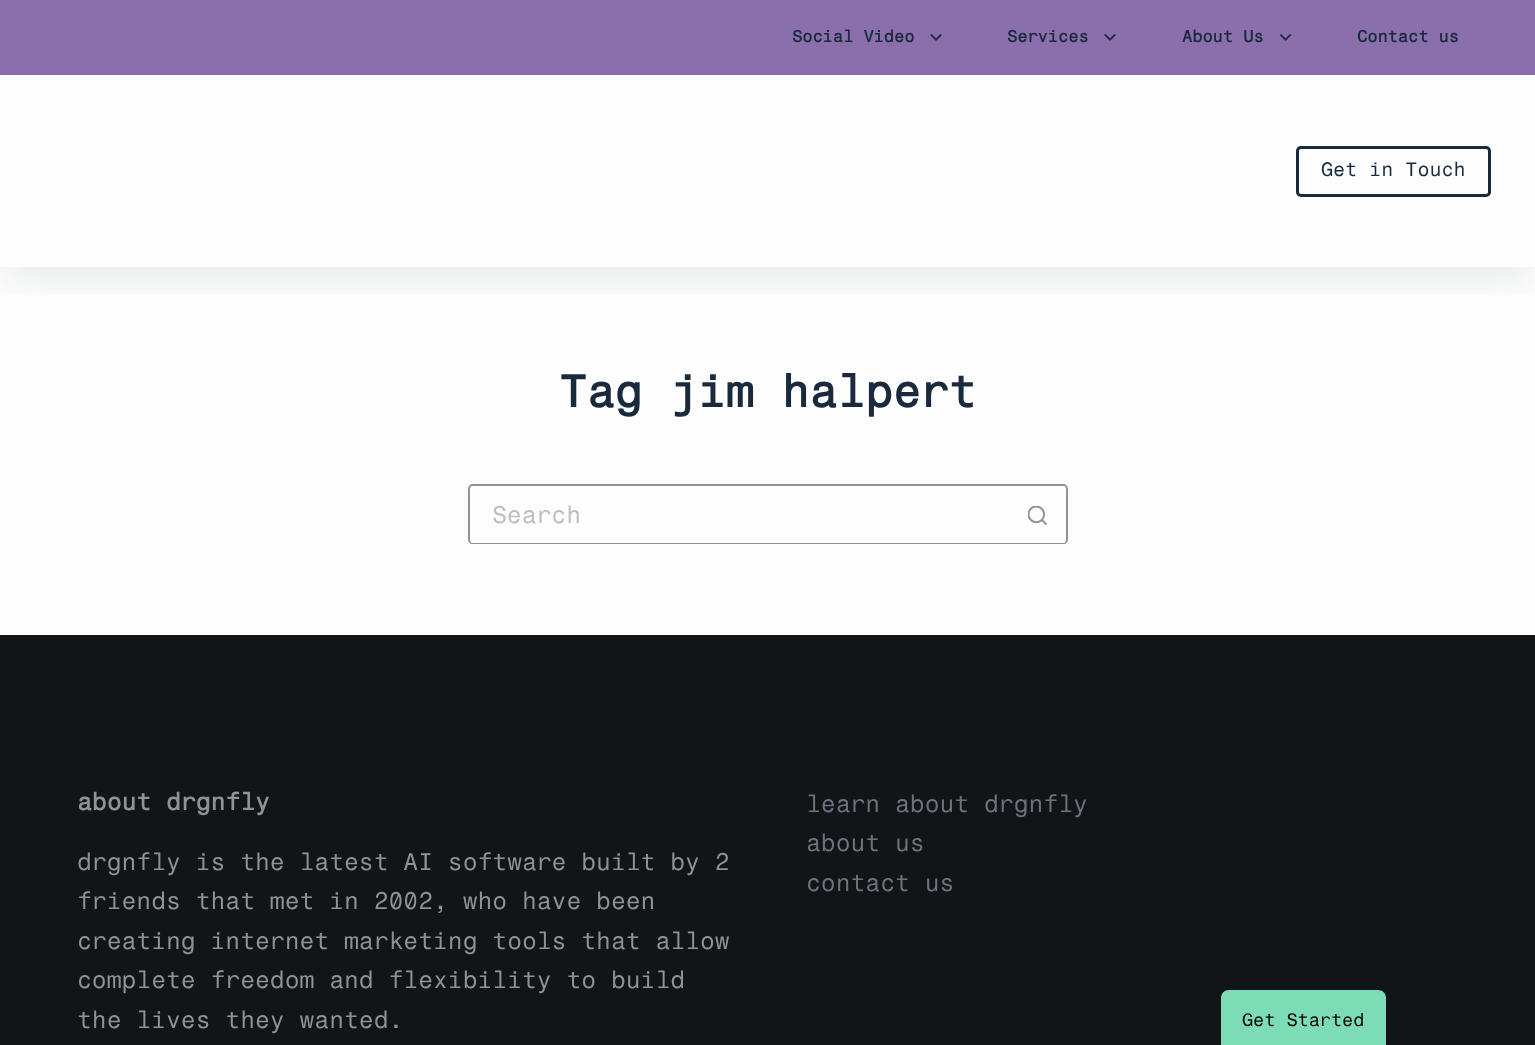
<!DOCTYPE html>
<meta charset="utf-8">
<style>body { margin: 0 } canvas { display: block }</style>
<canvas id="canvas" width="1535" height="1045"></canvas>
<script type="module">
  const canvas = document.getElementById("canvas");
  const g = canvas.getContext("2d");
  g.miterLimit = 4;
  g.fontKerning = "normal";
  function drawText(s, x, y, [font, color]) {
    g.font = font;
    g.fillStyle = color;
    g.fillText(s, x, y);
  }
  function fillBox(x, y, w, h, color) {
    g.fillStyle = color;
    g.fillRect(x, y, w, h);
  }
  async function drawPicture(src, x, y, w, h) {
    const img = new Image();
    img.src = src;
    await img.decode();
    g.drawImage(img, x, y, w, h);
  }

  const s1 = ["bold 16.5px Fragment Mono", "#192A3D"];
  const s2 = ["19.5px Fragment Mono", "#192A3D"];
  const s3 = ["bold 45px Fragment Mono", "#192A3D"];
  const s4 = ["24px Fragment Mono", "#BDBDBD"];
  const s5 = ["bold 24px Fragment Mono", "#929292"];
  const s6 = ["24px Fragment Mono", "#929292"];
  const s7 = ["18px Fragment Mono", "#000000"];
  const s8 = ["24px Fragment Mono", "#6C737D"];

  fillBox(0, 0, 1535, 1045, "#FDFDFD");
  g.save();
  g.beginPath();
  g.rect(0, 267, 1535, 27);
  g.clip();
  g.fillStyle = "rgba(43, 61, 80, 0.1)";
  g.filter = "blur(19px)";
  g.beginPath();
  g.rect(5, 95, 1527, 183);
  g.fill();
  g.filter = "none";
  g.restore();
  fillBox(0, 0, 1535, 75, "rgba(63, 16, 120, 0.6)");
  drawText("Social Video", 792, 42, s1);
  await drawPicture("pic1.png", 930, 34, 12, 7);
  drawText("Services", 1007, 42, s1);
  await drawPicture("pic1.png", 1104, 34, 12, 7);
  drawText("About Us", 1182, 42, s1);
  await drawPicture("pic2.png", 1280, 34, 12, 7);
  drawText("Contact us", 1357, 42, s1);
  g.beginPath();
  g.roundRect(1297.5, 147.5, 192, 48, 3.5);
  g.strokeStyle = "#192A3D";
  g.lineWidth = 3;
  g.stroke();
  drawText("Get in Touch", 1321, 176, s2);
  drawText("Tag jim halpert", 559, 407, s3);
  g.fillStyle = "#929292";
  g.beginPath();
  g.moveTo(472, 484);
  g.lineTo(1008, 484);
  g.lineTo(1008, 544);
  g.lineTo(472, 544);
  g.bezierCurveTo(470, 544, 468, 542, 468, 540);
  g.lineTo(468, 489);
  g.bezierCurveTo(468, 487, 470, 484, 472, 484);
  g.closePath();
  g.moveTo(472, 486);
  g.lineTo(1008, 486);
  g.lineTo(1008, 543);
  g.lineTo(472, 543);
  g.bezierCurveTo(471, 543, 470, 542, 470, 540);
  g.lineTo(470, 489);
  g.bezierCurveTo(470, 487, 471, 486, 472, 486);
  g.closePath();
  g.fill("evenodd");
  drawText("Search", 492, 523, s4);
  g.fillStyle = "#929292";
  g.beginPath();
  g.moveTo(1008, 484);
  g.lineTo(1064, 484);
  g.bezierCurveTo(1066, 484, 1068, 487, 1068, 489);
  g.lineTo(1068, 540);
  g.bezierCurveTo(1068, 542, 1066, 544, 1064, 544);
  g.lineTo(1008, 544);
  g.closePath();
  g.moveTo(1008, 486);
  g.lineTo(1064, 486);
  g.bezierCurveTo(1065, 486, 1066, 487, 1066, 489);
  g.lineTo(1066, 540);
  g.bezierCurveTo(1066, 542, 1065, 543, 1064, 543);
  g.lineTo(1008, 543);
  g.closePath();
  g.fill("evenodd");
  await drawPicture("pic3.png", 1028, 506, 19, 19);
  fillBox(0, 635, 1535, 410, "#111518");
  drawText("about drgnfly", 77, 810, s5);
  drawText("drgnfly is the latest AI software built by 2", 77, 870, s6);
  drawText("friends that met in 2002, who have been", 77, 909, s6);
  drawText("creating internet marketing tools that allow", 77, 949, s6);
  drawText("complete freedom and flexibility to build", 77, 988, s6);
  drawText("the lives they wanted.", 77, 1028, s6);
  g.fillStyle = "#7BDCB5";
  g.beginPath();
  g.moveTo(1229, 990);
  g.lineTo(1378, 990);
  g.bezierCurveTo(1382.5, 990, 1386, 993.5, 1386, 998);
  g.lineTo(1386, 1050);
  g.lineTo(1221, 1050);
  g.lineTo(1221, 998);
  g.bezierCurveTo(1221, 993.5, 1224.5, 990, 1229, 990);
  g.closePath();
  g.fill();
  drawText("Get Started", 1242, 1026, s7);
  drawText("learn about drgnfly", 806, 812, s8);
  drawText("about us", 806, 851, s8);
  drawText("contact us", 806, 891, s8);
</script>
